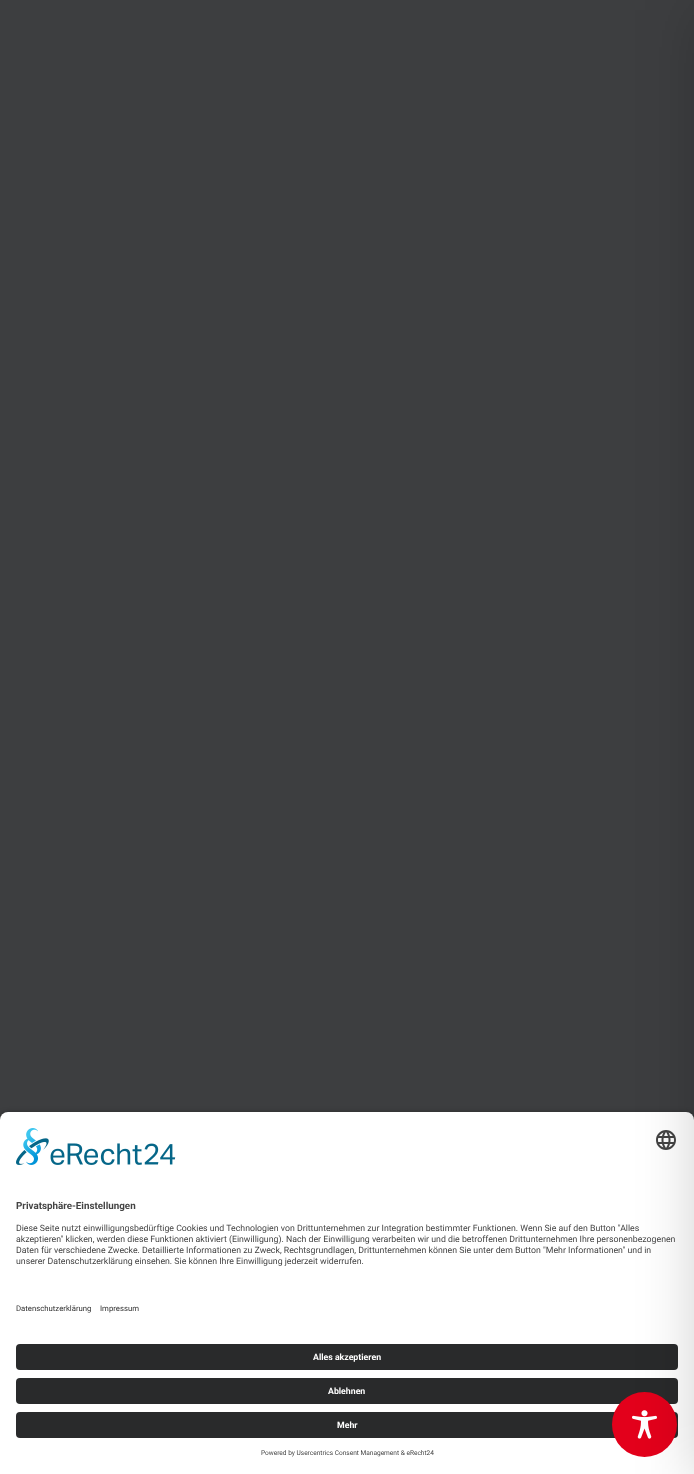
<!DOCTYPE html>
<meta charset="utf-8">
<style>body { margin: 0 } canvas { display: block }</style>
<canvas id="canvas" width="694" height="1474"></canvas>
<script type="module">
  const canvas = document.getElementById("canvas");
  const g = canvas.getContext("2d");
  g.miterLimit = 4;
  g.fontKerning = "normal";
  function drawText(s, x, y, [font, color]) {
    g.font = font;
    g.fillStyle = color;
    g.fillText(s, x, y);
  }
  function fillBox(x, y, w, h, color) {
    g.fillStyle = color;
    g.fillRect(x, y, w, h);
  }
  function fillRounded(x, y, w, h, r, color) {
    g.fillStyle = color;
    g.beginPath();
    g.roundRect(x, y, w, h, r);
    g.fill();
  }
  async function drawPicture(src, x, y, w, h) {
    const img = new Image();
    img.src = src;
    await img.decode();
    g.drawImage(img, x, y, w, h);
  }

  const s1 = ["bold 9.8px Roboto", "#444444"];
  const s2 = ["8.75px Roboto", "#444444"];
  const s3 = ["7.75px Roboto", "#303030"];
  const s4 = ["bold 8.75px Roboto", "#FFFFFF"];
  const s5 = ["6.55px Roboto", "#444444"];

  fillBox(0, 0, 694, 1474, "#3D3E40");
  g.fillStyle = "rgba(0, 0, 0, 0.8)";
  g.filter = "blur(3.5px)";
  g.beginPath();
  g.roundRect(0, 1115, 694, 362, 8);
  g.fill();
  g.filter = "none";
  g.fillStyle = "#FFFFFF";
  g.beginPath();
  g.roundRect(0, 1112, 694, 175, [8, 8, 0, 0]);
  g.fill();
  await drawPicture("pic2.png", 656, 1130, 20, 20);
  fillBox(0, 1287, 694, 187, "#FFFFFF");
  fillRounded(16, 1344, 662, 26, 4, "#292A2B");
  fillRounded(16, 1378, 662, 26, 4, "#292A2B");
  fillRounded(16, 1412, 662, 26, 4, "#292A2B");
  g.fillStyle = "#E3001B";
  g.beginPath();
  g.arc(644.5, 1424.5, 32.5, 0, Math.PI * 2);
  g.fill();
  await drawPicture("pic3.png", 632, 1410, 25, 29);
  g.fillStyle = "rgba(0, 0, 0, 0.2)";
  g.filter = "blur(30px)";
  g.beginPath();
  g.rect(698, 10, 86, 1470);
  g.fill();
  g.filter = "none";
  await drawPicture("pic1.png", 16, 1128, 160, 37);
  drawText("Privatsphäre-Einstellungen", 16, 1209, s1);
  drawText("Diese Seite nutzt einwilligungsbedürftige Cookies und Technologien von Drittunternehmen zur Integration bestimmter Funktionen. Wenn Sie auf den Button \"Alles", 16, 1231, s2);
  drawText("akzeptieren\" klicken, werden diese Funktionen aktiviert (Einwilligung). Nach der Einwilligung verarbeiten wir und die betroffenen Drittunternehmen Ihre personenbezogenen", 16, 1242, s2);
  drawText("Daten für verschiedene Zwecke. Detaillierte Informationen zu Zweck, Rechtsgrundlagen, Drittunternehmen können Sie unter dem Button \"Mehr Informationen\" und in", 16, 1253, s2);
  drawText("unserer Datenschutzerklärung einsehen. Sie können Ihre Einwilligung jederzeit widerrufen.", 16, 1264, s2);
  drawText("Datenschutzerklärung", 16, 1311, s3);
  drawText("Impressum", 100, 1311, s3);
  drawText("Alles akzeptieren", 313, 1360, s4);
  drawText("Ablehnen", 328, 1394, s4);
  drawText("Mehr", 337, 1428, s4);
  drawText("Powered by Usercentrics Consent Management & eRecht24", 261, 1455, s5);
</script>
